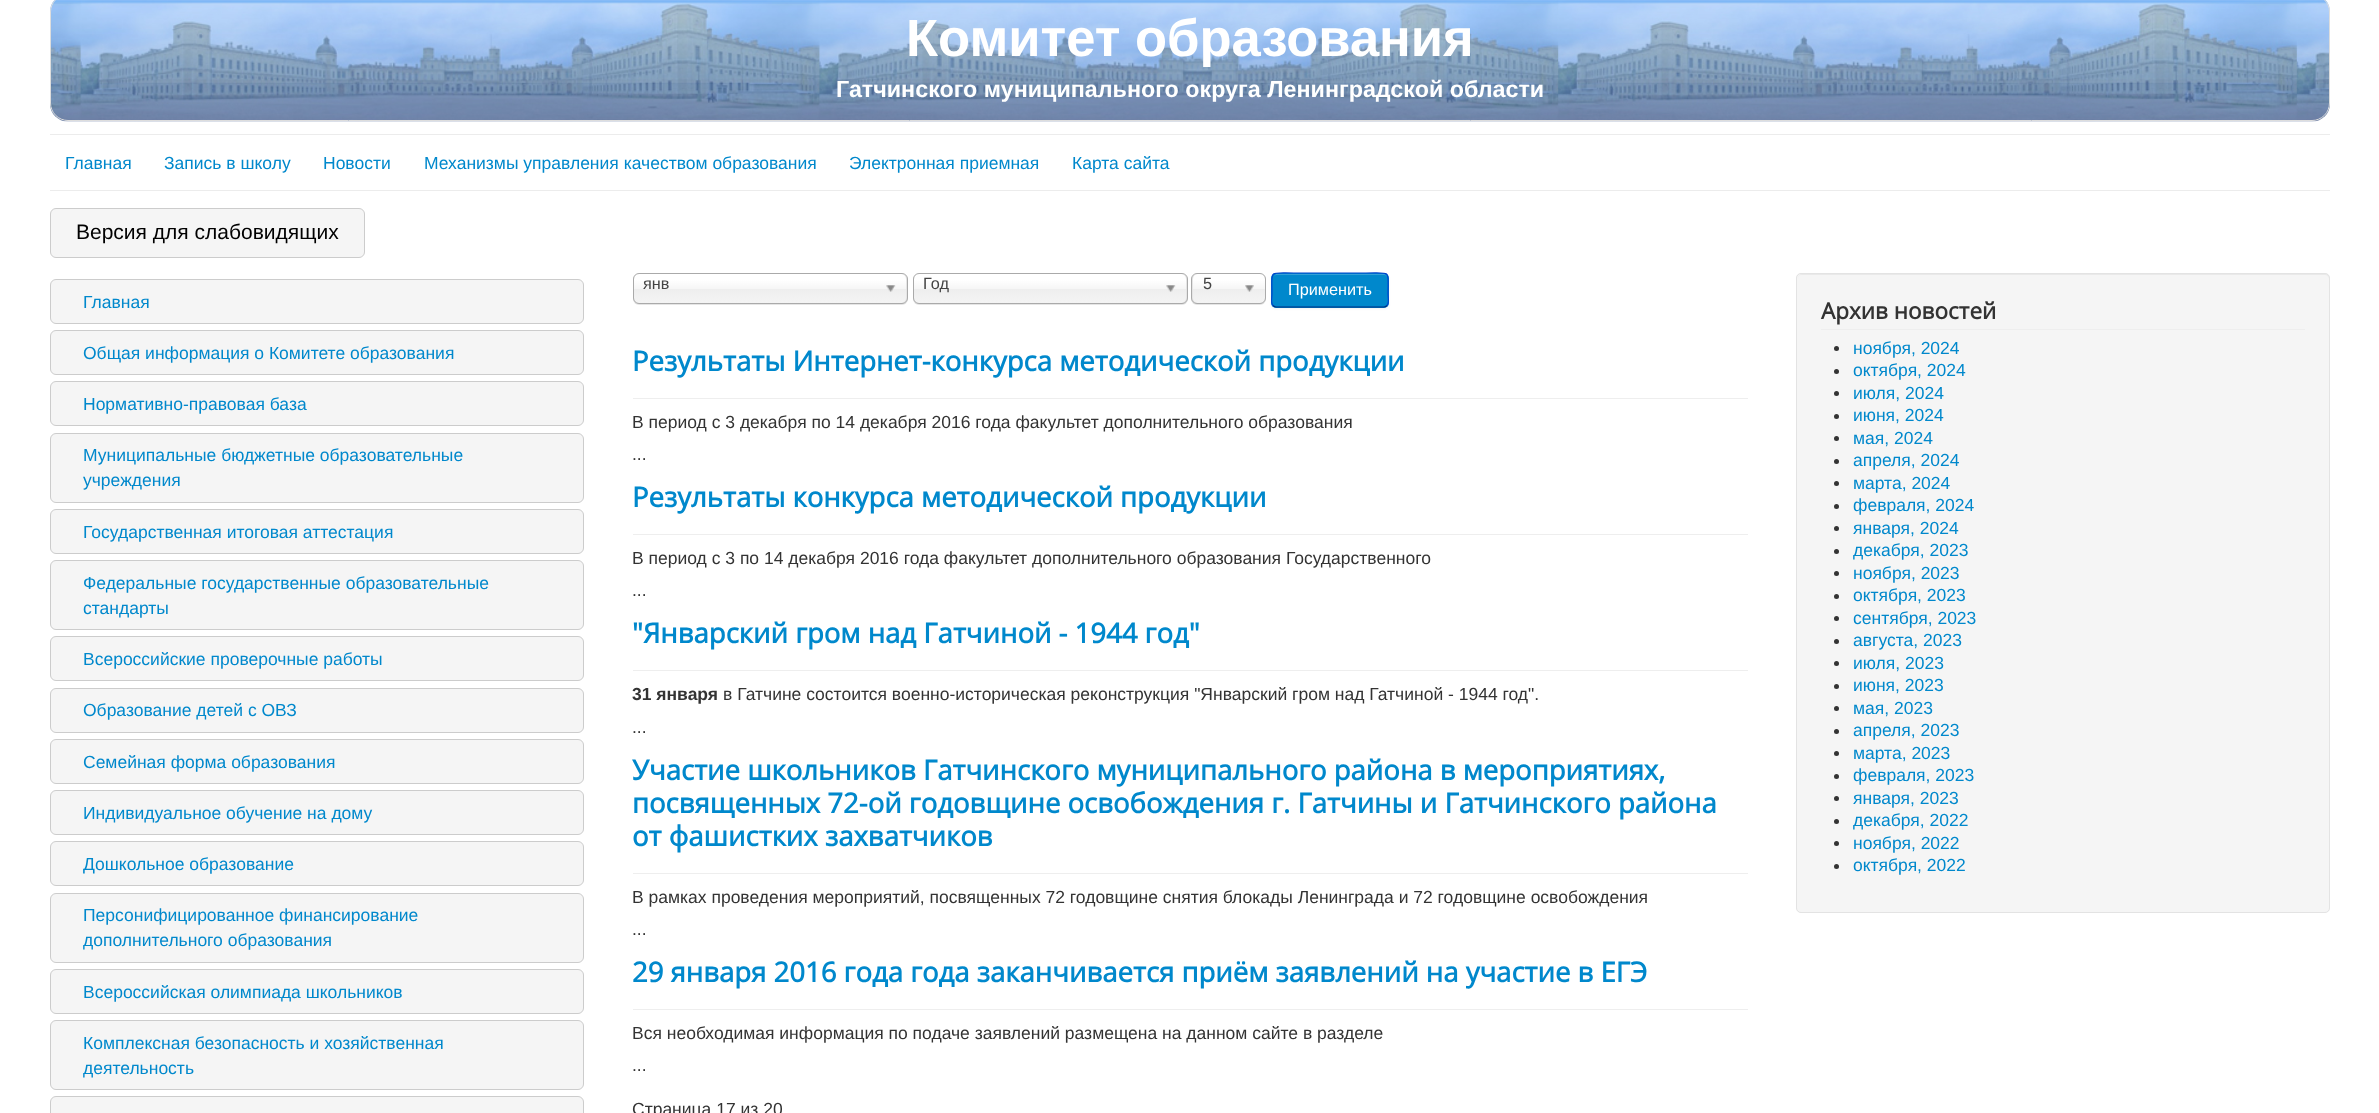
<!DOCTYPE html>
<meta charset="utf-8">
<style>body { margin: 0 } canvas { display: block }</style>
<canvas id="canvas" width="2379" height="1113"></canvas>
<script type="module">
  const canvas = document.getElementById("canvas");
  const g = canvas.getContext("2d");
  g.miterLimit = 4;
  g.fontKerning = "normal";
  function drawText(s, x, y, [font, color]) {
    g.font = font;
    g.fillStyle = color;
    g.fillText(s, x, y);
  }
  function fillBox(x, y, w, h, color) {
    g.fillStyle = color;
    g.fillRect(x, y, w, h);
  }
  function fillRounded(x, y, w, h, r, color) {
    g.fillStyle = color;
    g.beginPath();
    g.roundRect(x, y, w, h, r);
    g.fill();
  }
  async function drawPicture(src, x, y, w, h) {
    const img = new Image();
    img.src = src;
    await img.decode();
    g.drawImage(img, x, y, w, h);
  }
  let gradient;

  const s1 = ["bold 52.5px Liberation Sans", "#FFFFFF"];
  const s2 = ["bold 23.3px Liberation Sans", "#FFFFFF"];
  const s3 = ["17.5px Liberation Sans", "#0088CC"];
  const s4 = ["21px Liberation Sans", "#000000"];
  const s5 = ["16.25px Liberation Sans", "#444444"];
  const s6 = ["16.25px Liberation Sans", "#FFFFFF"];
  const s7 = ["bold 27.5px Open Sans", "#0088CC"];
  const s8 = ["17.5px Liberation Sans", "#333333"];
  const s9 = ["bold 17.5px Liberation Sans", "#333333"];
  const s10 = ["bold 22.5px Open Sans", "#333333"];

  fillBox(0, 0, 2379, 1113, "#FFFFFF");
  await drawPicture("pic1.png", 50, 0, 2280, 122);
  g.beginPath();
  g.roundRect(50.5, -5.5, 2279, 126, 17.5);
  g.strokeStyle = "#DDDDDD";
  g.stroke();
  drawText("Комитет образования", 906, 56, s1);
  drawText("Гатчинского муниципального округа Ленинградской области", 836, 97, s2);
  fillBox(50, 134, 2280, 1, "#ECECEC");
  fillBox(50, 190, 2280, 1, "#ECECEC");
  drawText("Главная", 65, 169, s3);
  drawText("Запись в школу", 164, 169, s3);
  drawText("Новости", 323, 169, s3);
  drawText("Механизмы управления качеством образования", 424, 169, s3);
  drawText("Электронная приемная", 849, 169, s3);
  drawText("Карта сайта", 1072, 169, s3);
  g.fillStyle = "#F5F5F5";
  g.beginPath();
  g.roundRect(50.5, 208.5, 314, 49, 5.5);
  g.fill();
  g.strokeStyle = "#CCCCCC";
  g.stroke();
  drawText("Версия для слабовидящих", 76, 239, s4);
  g.fillStyle = "#F5F5F5";
  g.beginPath();
  g.roundRect(50.5, 279.5, 533, 44, 5.5);
  g.fill();
  g.stroke();
  drawText("Главная", 83, 308, s3);
  g.fillStyle = "#F5F5F5";
  g.beginPath();
  g.roundRect(50.5, 330.5, 533, 44, 5.5);
  g.fill();
  g.stroke();
  drawText("Общая информация о Комитете образования", 83, 359, s3);
  g.fillStyle = "#F5F5F5";
  g.beginPath();
  g.roundRect(50.5, 381.5, 533, 44, 5.5);
  g.fill();
  g.stroke();
  drawText("Нормативно-правовая база", 83, 410, s3);
  g.fillStyle = "#F5F5F5";
  g.beginPath();
  g.roundRect(50.5, 433.5, 533, 69, 5.5);
  g.fill();
  g.stroke();
  drawText("Муниципальные бюджетные образовательные", 83, 461, s3);
  drawText("учреждения", 83, 486, s3);
  g.fillStyle = "#F5F5F5";
  g.beginPath();
  g.roundRect(50.5, 509.5, 533, 44, 5.5);
  g.fill();
  g.stroke();
  drawText("Государственная итоговая аттестация", 83, 538, s3);
  g.fillStyle = "#F5F5F5";
  g.beginPath();
  g.roundRect(50.5, 560.5, 533, 69, 5.5);
  g.fill();
  g.stroke();
  drawText("Федеральные государственные образовательные", 83, 589, s3);
  drawText("стандарты", 83, 614, s3);
  g.fillStyle = "#F5F5F5";
  g.beginPath();
  g.roundRect(50.5, 636.5, 533, 44, 5.5);
  g.fill();
  g.stroke();
  drawText("Всероссийские проверочные работы", 83, 665, s3);
  g.fillStyle = "#F5F5F5";
  g.beginPath();
  g.roundRect(50.5, 688.5, 533, 44, 5.5);
  g.fill();
  g.stroke();
  drawText("Образование детей с ОВЗ", 83, 716, s3);
  g.fillStyle = "#F5F5F5";
  g.beginPath();
  g.roundRect(50.5, 739.5, 533, 44, 5.5);
  g.fill();
  g.stroke();
  drawText("Семейная форма образования", 83, 768, s3);
  g.fillStyle = "#F5F5F5";
  g.beginPath();
  g.roundRect(50.5, 790.5, 533, 44, 5.5);
  g.fill();
  g.stroke();
  drawText("Индивидуальное обучение на дому", 83, 819, s3);
  g.fillStyle = "#F5F5F5";
  g.beginPath();
  g.roundRect(50.5, 841.5, 533, 44, 5.5);
  g.fill();
  g.stroke();
  drawText("Дошкольное образование", 83, 870, s3);
  g.fillStyle = "#F5F5F5";
  g.beginPath();
  g.roundRect(50.5, 893.5, 533, 69, 5.5);
  g.fill();
  g.stroke();
  drawText("Персонифицированное финансирование", 83, 921, s3);
  drawText("дополнительного образования", 83, 946, s3);
  g.fillStyle = "#F5F5F5";
  g.beginPath();
  g.roundRect(50.5, 969.5, 533, 44, 5.5);
  g.fill();
  g.stroke();
  drawText("Всероссийская олимпиада школьников", 83, 998, s3);
  g.fillStyle = "#F5F5F5";
  g.beginPath();
  g.roundRect(50.5, 1020.5, 533, 69, 5.5);
  g.fill();
  g.stroke();
  drawText("Комплексная безопасность и хозяйственная", 83, 1049, s3);
  drawText("деятельность", 83, 1074, s3);
  g.fillStyle = "#F5F5F5";
  g.beginPath();
  g.roundRect(50.5, 1096.5, 533, 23, 5.5);
  g.fill();
  g.stroke();
  g.fillStyle = "rgba(0, 0, 0, 0.1)";
  g.filter = "blur(0.5px)";
  g.beginPath();
  g.roundRect(633, 274, 275, 31, 6);
  g.fill();
  g.filter = "none";
  gradient = g.createLinearGradient(770, 274, 770, 303);
  gradient.addColorStop(0.2, "#FFFFFF");
  gradient.addColorStop(0.5, "#F6F6F6");
  gradient.addColorStop(0.52, "#EEEEEE");
  gradient.addColorStop(1, "#F4F4F4");
  g.fillStyle = gradient;
  g.beginPath();
  g.roundRect(634, 274, 272, 29, 5);
  g.fill();
  g.beginPath();
  g.roundRect(633.5, 273.5, 274, 30, 5.5);
  g.strokeStyle = "#AAAAAA";
  g.stroke();
  drawText("янв", 643, 289, s5);
  await drawPicture("pic2.png", 886, 285, 10, 7);
  g.fillStyle = "rgba(0, 0, 0, 0.1)";
  g.filter = "blur(0.5px)";
  g.beginPath();
  g.roundRect(913, 274, 275, 31, 6);
  g.fill();
  g.filter = "none";
  gradient = g.createLinearGradient(1050, 274, 1050, 303);
  gradient.addColorStop(0.2, "#FFFFFF");
  gradient.addColorStop(0.5, "#F6F6F6");
  gradient.addColorStop(0.52, "#EEEEEE");
  gradient.addColorStop(1, "#F4F4F4");
  g.fillStyle = gradient;
  g.beginPath();
  g.roundRect(914, 274, 272, 29, 5);
  g.fill();
  g.beginPath();
  g.roundRect(913.5, 273.5, 274, 30, 5.5);
  g.stroke();
  drawText("Год", 923, 289, s5);
  await drawPicture("pic2.png", 1166, 285, 10, 7);
  g.fillStyle = "rgba(0, 0, 0, 0.1)";
  g.filter = "blur(0.5px)";
  g.beginPath();
  g.roundRect(1191, 274, 75, 31, 6);
  g.fill();
  g.filter = "none";
  gradient = g.createLinearGradient(1229, 274, 1229, 303);
  gradient.addColorStop(0.2, "#FFFFFF");
  gradient.addColorStop(0.5, "#F6F6F6");
  gradient.addColorStop(0.52, "#EEEEEE");
  gradient.addColorStop(1, "#F4F4F4");
  g.fillStyle = gradient;
  g.beginPath();
  g.roundRect(1193, 274, 72, 29, 5);
  g.fill();
  g.beginPath();
  g.roundRect(1191.5, 273.5, 74, 30, 5.5);
  g.stroke();
  drawText("5", 1203, 289, s5);
  await drawPicture("pic3.png", 1245, 285, 9, 7);
  g.fillStyle = "rgba(0, 0, 0, 0.05)";
  g.filter = "blur(1px)";
  g.beginPath();
  g.roundRect(1271, 274, 118, 35, 5);
  g.fill();
  g.filter = "none";
  fillRounded(1271, 273, 118, 35, 5, "#0088CC");
  g.fillStyle = "#33A0D6";
  g.beginPath();
  g.moveTo(1276, 275);
  g.lineTo(1384, 275);
  g.bezierCurveTo(1386, 275, 1388, 277, 1388, 279);
  g.lineTo(1387, 276);
  g.lineTo(1385, 274);
  g.lineTo(1276, 274);
  g.lineTo(1274, 276);
  g.closePath();
  g.fill();
  g.beginPath();
  g.moveTo(1387, 305.5);
  g.bezierCurveTo(1386, 306.5, 1385, 307, 1384, 307);
  g.lineTo(1276, 307);
  g.bezierCurveTo(1275, 307, 1274, 306.5, 1273, 305.5);
  g.strokeStyle = "#002A80";
  g.lineWidth = 1.2;
  g.stroke();
  g.beginPath();
  g.moveTo(1273, 305.5);
  g.bezierCurveTo(1270.5, 303, 1272, 297.5, 1272, 294);
  g.bezierCurveTo(1272, 269.5, 1268, 273, 1294, 273);
  g.lineTo(1366, 273);
  g.bezierCurveTo(1392, 273, 1388, 269.5, 1388, 294);
  g.bezierCurveTo(1388, 297.5, 1389.5, 303, 1387, 305.5);
  g.strokeStyle = "#0044CC";
  g.stroke();
  drawText("Применить", 1288, 295, s6);
  fillBox(633, 398, 1115, 1, "#EEEEEE");
  drawText("Результаты Интернет-конкурса методической продукции", 632, 371, s7);
  drawText("В период с 3 декабря по 14 декабря 2016 года факультет дополнительного образования", 632, 428, s8);
  drawText("...", 632, 460, s8);
  fillBox(633, 534, 1115, 1, "#EEEEEE");
  drawText("Результаты конкурса методической продукции", 632, 507, s7);
  drawText("В период с 3 по 14 декабря 2016 года факультет дополнительного образования Государственного", 632, 564, s8);
  drawText("...", 632, 596, s8);
  fillBox(633, 670, 1115, 1, "#EEEEEE");
  drawText("\"Январский гром над Гатчиной - 1944 год\"", 632, 643, s7);
  drawText("31 января", 632, 700, s9);
  drawText("в Гатчине состоится военно-историческая реконструкция \"Январский гром над Гатчиной - 1944 год\".", 723, 700, s8);
  drawText("...", 632, 733, s8);
  fillBox(633, 873, 1115, 1, "#EEEEEE");
  drawText("Участие школьников Гатчинского муниципального района в мероприятиях,", 632, 780, s7);
  drawText("посвященных 72-ой годовщине освобождения г. Гатчины и Гатчинского района", 632, 813, s7);
  drawText("от фашистких захватчиков", 632, 846, s7);
  drawText("В рамках проведения мероприятий, посвященных 72 годовщине снятия блокады Ленинграда и 72 годовщине освобождения", 632, 903, s8);
  drawText("...", 632, 935, s8);
  fillBox(633, 1009, 1115, 1, "#EEEEEE");
  drawText("29 января 2016 года года заканчивается приём заявлений на участие в ЕГЭ", 632, 982, s7);
  drawText("Вся необходимая информация по подаче заявлений размещена на данном сайте в разделе", 632, 1039, s8);
  drawText("...", 632, 1071, s8);
  drawText("Страница 17 из 20", 632, 1115, s8);
  fillRounded(1796, 273, 534, 640, 5, "#F5F5F5");
  g.fillStyle = "#E9E9E9";
  g.beginPath();
  g.moveTo(1801, 275);
  g.lineTo(2325, 275);
  g.bezierCurveTo(2327, 275, 2329, 277, 2329, 279);
  g.lineTo(2329, 278);
  g.bezierCurveTo(2329, 276, 2327, 274, 2325, 274);
  g.lineTo(1802, 274);
  g.bezierCurveTo(1800, 274, 1798, 276, 1798, 278);
  g.lineTo(1798, 279);
  g.bezierCurveTo(1798, 277, 1799, 275, 1801, 275);
  g.closePath();
  g.fill();
  g.beginPath();
  g.roundRect(1796.5, 273.5, 533, 639, 4.5);
  g.strokeStyle = "#E3E3E3";
  g.lineWidth = 1;
  g.stroke();
  fillBox(1821, 329, 484, 1, "#EEEEEE");
  drawText("Архив новостей", 1821, 319, s10);
  g.beginPath();
  g.arc(1836.5, 348.5, 2.5, 0, Math.PI * 2);
  g.fill();
  drawText("ноября, 2024", 1853, 354, s3);
  g.fillStyle = "#333333";
  g.beginPath();
  g.arc(1836.5, 371.5, 2.5, 0, Math.PI * 2);
  g.fill();
  drawText("октября, 2024", 1853, 376, s3);
  g.fillStyle = "#333333";
  g.beginPath();
  g.arc(1836.5, 393.5, 2.5, 0, Math.PI * 2);
  g.fill();
  drawText("июля, 2024", 1853, 399, s3);
  g.fillStyle = "#333333";
  g.beginPath();
  g.arc(1836.5, 416.5, 2.5, 0, Math.PI * 2);
  g.fill();
  drawText("июня, 2024", 1853, 421, s3);
  g.fillStyle = "#333333";
  g.beginPath();
  g.arc(1836.5, 438.5, 2.5, 0, Math.PI * 2);
  g.fill();
  drawText("мая, 2024", 1853, 444, s3);
  g.fillStyle = "#333333";
  g.beginPath();
  g.arc(1836.5, 461.5, 2.5, 0, Math.PI * 2);
  g.fill();
  drawText("апреля, 2024", 1853, 466, s3);
  g.fillStyle = "#333333";
  g.beginPath();
  g.arc(1836.5, 483.5, 2.5, 0, Math.PI * 2);
  g.fill();
  drawText("марта, 2024", 1853, 489, s3);
  g.fillStyle = "#333333";
  g.beginPath();
  g.arc(1836.5, 506.5, 2.5, 0, Math.PI * 2);
  g.fill();
  drawText("февраля, 2024", 1853, 511, s3);
  g.fillStyle = "#333333";
  g.beginPath();
  g.arc(1836.5, 528.5, 2.5, 0, Math.PI * 2);
  g.fill();
  drawText("января, 2024", 1853, 534, s3);
  g.fillStyle = "#333333";
  g.beginPath();
  g.arc(1836.5, 551.5, 2.5, 0, Math.PI * 2);
  g.fill();
  drawText("декабря, 2023", 1853, 556, s3);
  g.fillStyle = "#333333";
  g.beginPath();
  g.arc(1836.5, 573.5, 2.5, 0, Math.PI * 2);
  g.fill();
  drawText("ноября, 2023", 1853, 579, s3);
  g.fillStyle = "#333333";
  g.beginPath();
  g.arc(1836.5, 596.5, 2.5, 0, Math.PI * 2);
  g.fill();
  drawText("октября, 2023", 1853, 601, s3);
  g.fillStyle = "#333333";
  g.beginPath();
  g.arc(1836.5, 618.5, 2.5, 0, Math.PI * 2);
  g.fill();
  drawText("сентября, 2023", 1853, 624, s3);
  g.fillStyle = "#333333";
  g.beginPath();
  g.arc(1836.5, 641.5, 2.5, 0, Math.PI * 2);
  g.fill();
  drawText("августа, 2023", 1853, 646, s3);
  g.fillStyle = "#333333";
  g.beginPath();
  g.arc(1836.5, 663.5, 2.5, 0, Math.PI * 2);
  g.fill();
  drawText("июля, 2023", 1853, 669, s3);
  g.fillStyle = "#333333";
  g.beginPath();
  g.arc(1836.5, 686.5, 2.5, 0, Math.PI * 2);
  g.fill();
  drawText("июня, 2023", 1853, 691, s3);
  g.fillStyle = "#333333";
  g.beginPath();
  g.arc(1836.5, 708.5, 2.5, 0, Math.PI * 2);
  g.fill();
  drawText("мая, 2023", 1853, 714, s3);
  g.fillStyle = "#333333";
  g.beginPath();
  g.arc(1836.5, 731.5, 2.5, 0, Math.PI * 2);
  g.fill();
  drawText("апреля, 2023", 1853, 736, s3);
  g.fillStyle = "#333333";
  g.beginPath();
  g.arc(1836.5, 753.5, 2.5, 0, Math.PI * 2);
  g.fill();
  drawText("марта, 2023", 1853, 759, s3);
  g.fillStyle = "#333333";
  g.beginPath();
  g.arc(1836.5, 776.5, 2.5, 0, Math.PI * 2);
  g.fill();
  drawText("февраля, 2023", 1853, 781, s3);
  g.fillStyle = "#333333";
  g.beginPath();
  g.arc(1836.5, 798.5, 2.5, 0, Math.PI * 2);
  g.fill();
  drawText("января, 2023", 1853, 804, s3);
  g.fillStyle = "#333333";
  g.beginPath();
  g.arc(1836.5, 821.5, 2.5, 0, Math.PI * 2);
  g.fill();
  drawText("декабря, 2022", 1853, 826, s3);
  g.fillStyle = "#333333";
  g.beginPath();
  g.arc(1836.5, 843.5, 2.5, 0, Math.PI * 2);
  g.fill();
  drawText("ноября, 2022", 1853, 849, s3);
  g.fillStyle = "#333333";
  g.beginPath();
  g.arc(1836.5, 866.5, 2.5, 0, Math.PI * 2);
  g.fill();
  drawText("октября, 2022", 1853, 871, s3);
</script>
